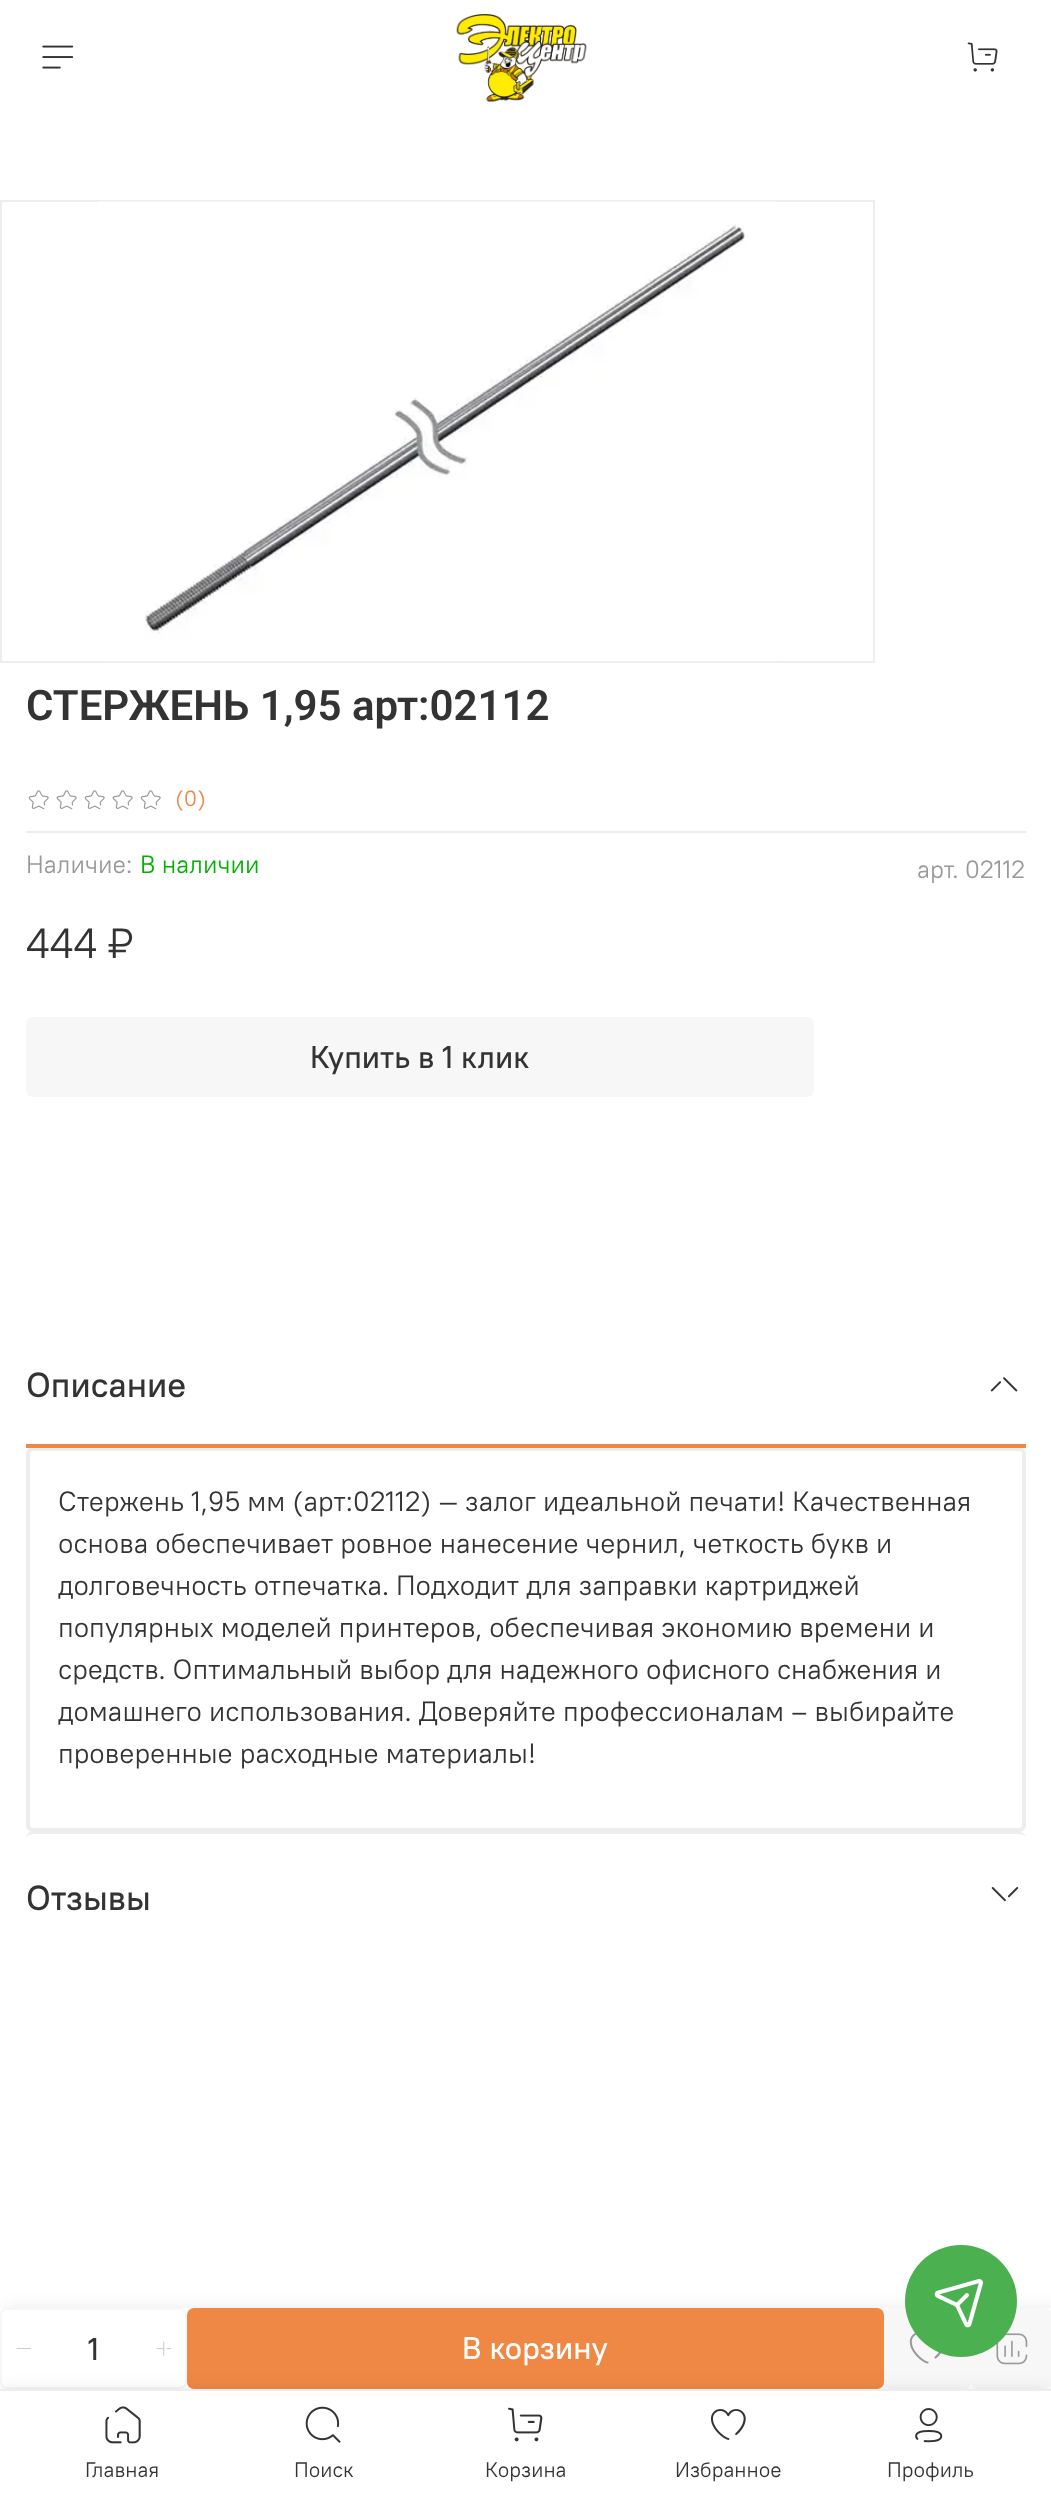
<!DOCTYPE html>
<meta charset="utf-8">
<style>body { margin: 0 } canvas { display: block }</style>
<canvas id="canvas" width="1051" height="2497"></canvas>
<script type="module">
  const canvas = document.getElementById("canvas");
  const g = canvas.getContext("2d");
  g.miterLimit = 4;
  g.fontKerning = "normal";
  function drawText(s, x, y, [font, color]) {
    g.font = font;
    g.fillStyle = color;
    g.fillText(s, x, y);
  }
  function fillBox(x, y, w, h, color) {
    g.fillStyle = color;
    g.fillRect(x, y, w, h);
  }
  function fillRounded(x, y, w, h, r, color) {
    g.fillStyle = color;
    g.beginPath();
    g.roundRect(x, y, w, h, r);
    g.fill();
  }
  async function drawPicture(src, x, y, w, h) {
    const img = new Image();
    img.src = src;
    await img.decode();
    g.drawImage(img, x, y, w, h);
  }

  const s1 = ["600 42px Roboto", "#333333"];
  const s2 = ["22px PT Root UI", "#EF8845"];
  const s3 = ["25px PT Root UI", "#999999"];
  const s4 = ["25px PT Root UI", "#00B200"];
  const s5 = ["42px PT Root UI", "#333333"];
  const s6 = ["500 31.5px PT Root UI", "#333333"];
  const s7 = ["500 31.5px PT Root UI", "#FFFFFF"];
  const s8 = ["500 35px PT Root UI", "#333333"];
  const s9 = ["28px PT Root UI", "#333333"];
  const s10 = ["21px PT Root UI", "#333333"];

  fillBox(0, 0, 1051, 2497, "#FFFFFF");
  await drawPicture("pic1.png", 42, 45, 32, 24);
  await drawPicture("pic2.png", 456, 14, 131, 88);
  await drawPicture("pic3.png", 967, 42, 31, 30);
  g.strokeStyle = "#EDEDED";
  g.lineWidth = 2;
  g.strokeRect(1, 201, 873, 461);
  await drawPicture("pic4.png", 98, 201, 679, 461);
  drawText("СТЕРЖЕНЬ 1,95 арт:02112", 26, 720, s1);
  await drawPicture("pic5.png", 28, 790, 21, 20);
  await drawPicture("pic5.png", 56, 790, 21, 20);
  await drawPicture("pic5.png", 84, 790, 21, 20);
  await drawPicture("pic5.png", 112, 790, 21, 20);
  await drawPicture("pic5.png", 140, 790, 21, 20);
  drawText("(0)", 175, 806, s2);
  fillBox(26, 831, 1000, 2, "#EDEDED");
  drawText("Наличие:", 26, 873, s3);
  drawText("В наличии", 140, 873, s4);
  drawText("арт. 02112", 917, 878, s3);
  drawText("444 ₽", 26, 958, s5);
  fillRounded(26, 1017, 788, 80, 7, "#F7F7F7");
  drawText("Купить в 1 клик", 310, 1068, s6);
  g.fillStyle = "rgba(0, 0, 0, 0.08)";
  g.filter = "blur(9px)";
  g.beginPath();
  g.rect(7, 2308, 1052, 81);
  g.fill();
  g.filter = "none";
  fillBox(0, 2308, 1051, 81, "#FFFFFF");
  g.beginPath();
  g.roundRect(1, 2309, 185, 79, 6);
  g.strokeStyle = "#F7F7F7";
  g.stroke();
  await drawPicture("pic6.png", 16, 2348, 15, 1);
  drawText("1", 88, 2360, s6);
  await drawPicture("pic7.png", 156, 2341, 15, 15);
  fillRounded(187, 2308, 697, 81, 7, "#EF8845");
  drawText("В корзину", 462, 2359, s7);
  fillRounded(884, 2308, 87, 81, 7, "#F7F7F7");
  await drawPicture("pic8.png", 909, 2333, 32, 31);
  fillRounded(971, 2308, 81, 81, 7, "#F7F7F7");
  await drawPicture("pic9.png", 996, 2333, 32, 32);
  g.beginPath();
  g.roundRect(28, 1449, 996, 381, 5);
  g.strokeStyle = "#EDEDED";
  g.lineWidth = 4;
  g.stroke();
  fillBox(26, 1444, 1000, 4, "#EF8845");
  drawText("Описание", 26, 1397, s8);
  await drawPicture("pic10.png", 990, 1377, 28, 15);
  drawText("Стержень 1,95 мм (арт:02112) — залог идеальной печати! Качественная", 58, 1511, s9);
  drawText("основа обеспечивает ровное нанесение чернил, четкость букв и", 58, 1553, s9);
  drawText("долговечность отпечатка. Подходит для заправки картриджей", 58, 1595, s9);
  drawText("популярных моделей принтеров, обеспечивая экономию времени и", 58, 1637, s9);
  drawText("средств. Оптимальный выбор для надежного офисного снабжения и", 58, 1679, s9);
  drawText("домашнего использования. Доверяйте профессионалам – выбирайте", 58, 1721, s9);
  drawText("проверенные расходные материалы!", 58, 1763, s9);
  g.fillStyle = "#EDEDED";
  g.beginPath();
  g.moveTo(33, 1834);
  g.bezierCurveTo(30, 1834, 27, 1835, 26, 1838);
  g.bezierCurveTo(26, 1835, 29, 1832, 31, 1832);
  g.lineTo(1020, 1832);
  g.bezierCurveTo(1022, 1832, 1026, 1835, 1026, 1837);
  g.bezierCurveTo(1024, 1835, 1021, 1834, 1018, 1834);
  g.closePath();
  g.fill();
  drawText("Отзывы", 26, 1910, s8);
  await drawPicture("pic11.png", 991, 1887, 28, 15);
  g.fillStyle = "#4BB04F";
  g.beginPath();
  g.arc(961, 2301, 56, 0, Math.PI * 2);
  g.fill();
  await drawPicture("pic12.png", 934, 2279, 49, 49);
  g.fillStyle = "rgba(0, 0, 0, 0.12)";
  g.filter = "blur(9px)";
  g.beginPath();
  g.rect(0, 2392, 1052, 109);
  g.fill();
  g.filter = "none";
  fillBox(0, 2391, 1051, 106, "#FFFFFF");
  fillBox(0, 2389, 1051, 2, "#EDEDED");
  await drawPicture("pic13.png", 105, 2406, 36, 38);
  drawText("Главная", 85, 2477, s10);
  await drawPicture("pic14.png", 305, 2406, 36, 37);
  drawText("Поиск", 294, 2477, s10);
  await drawPicture("pic15.png", 508, 2407, 35, 35);
  drawText("Корзина", 485, 2477, s10);
  await drawPicture("pic16.png", 710, 2409, 36, 31);
  drawText("Избранное", 675, 2477, s10);
  await drawPicture("pic17.png", 915, 2408, 28, 35);
  drawText("Профиль", 887, 2477, s10);
</script>
